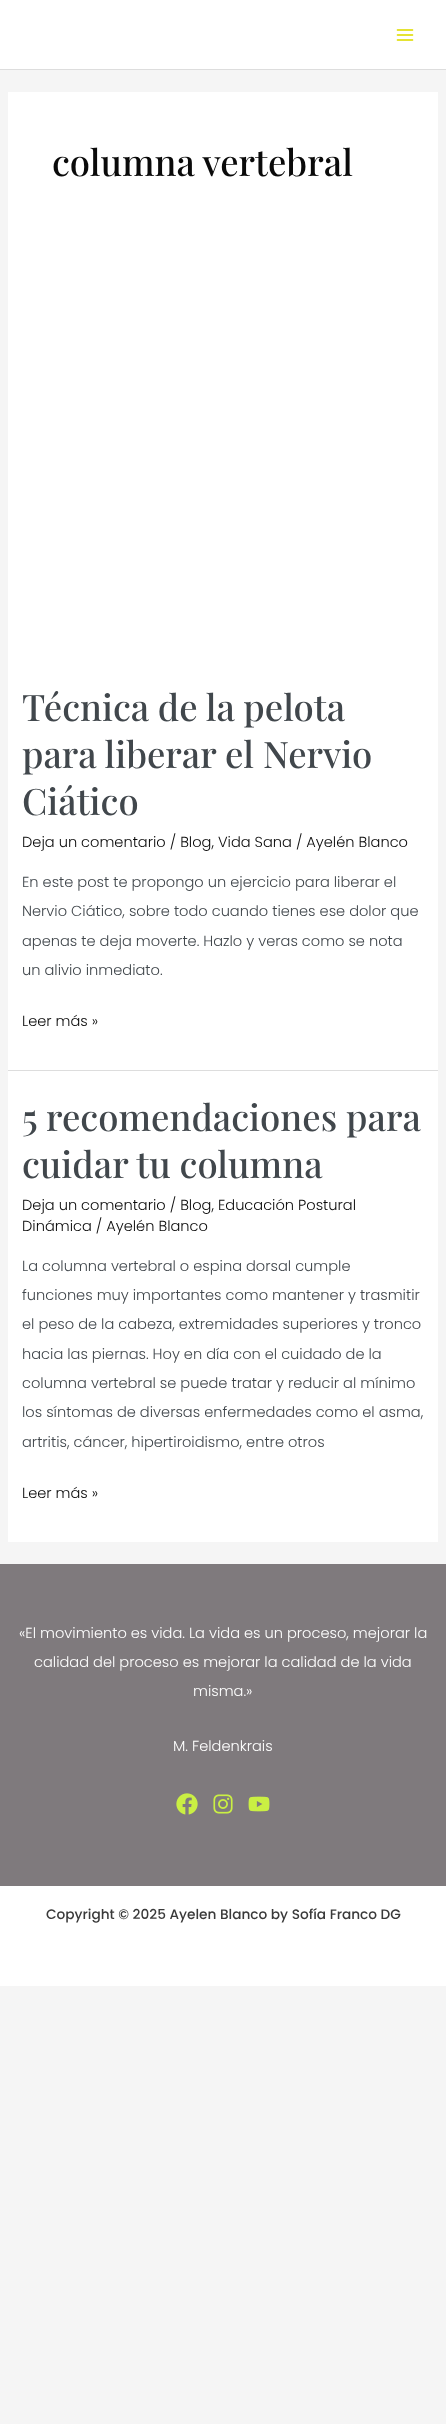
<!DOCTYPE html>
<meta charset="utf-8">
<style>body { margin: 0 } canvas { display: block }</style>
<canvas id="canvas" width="446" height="2424"></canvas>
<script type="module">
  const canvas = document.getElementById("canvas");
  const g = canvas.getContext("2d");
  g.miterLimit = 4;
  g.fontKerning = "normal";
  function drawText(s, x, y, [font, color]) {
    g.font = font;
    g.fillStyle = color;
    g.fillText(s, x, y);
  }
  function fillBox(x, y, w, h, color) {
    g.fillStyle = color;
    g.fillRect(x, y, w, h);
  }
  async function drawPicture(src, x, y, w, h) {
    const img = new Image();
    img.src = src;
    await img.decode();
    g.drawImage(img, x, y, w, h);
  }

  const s1 = ["500 36.5px Playfair Display", "#0A0A0A"];
  const s2 = ["500 36.5px Playfair Display", "#41474C"];
  const s3 = ["300 14.6px Poppins", "#0A0A0A"];
  const s4 = ["300 14.6px Poppins", "#41474C"];
  const s5 = ["300 14.6px Poppins", "#FFFFFF"];
  const s6 = ["500 13.7px Poppins", "#3A3A3A"];

  fillBox(0, 0, 446, 2424, "#F5F5F5");
  fillBox(0, 0, 446, 69, "#FFFFFF");
  fillBox(0, 69, 446, 1, "#DDDDDD");
  await drawPicture("pic1.png", 396, 29, 18, 12);
  fillBox(8, 92, 430, 978, "#FFFFFF");
  drawText("columna vertebral", 52, 176, s1);
  fillBox(8, 1070, 430, 1, "#DDDDDD");
  drawText("Técnica de la pelota", 22, 721, s2);
  drawText("para liberar el Nervio", 22, 768, s2);
  drawText("Ciático", 22, 815, s2);
  drawText("Deja un comentario / Blog, Vida Sana / Ayelén Blanco", 22, 847, s3);
  drawText("En este post te propongo un ejercicio para liberar el", 22, 887, s4);
  drawText("Nervio Ciático, sobre todo cuando tienes ese dolor que", 22, 916, s4);
  drawText("apenas te deja moverte. Hazlo y veras como se nota", 22, 946, s4);
  drawText("un alivio inmediato.", 22, 975, s4);
  drawText("Leer más »", 22, 1026, s3);
  fillBox(8, 1071, 430, 471, "#FFFFFF");
  drawText("5 recomendaciones para", 22, 1131, s2);
  drawText("cuidar tu columna", 22, 1178, s2);
  drawText("Deja un comentario / Blog, Educación Postural", 22, 1210, s3);
  drawText("Dinámica / Ayelén Blanco", 22, 1231, s3);
  drawText("La columna vertebral o espina dorsal cumple", 22, 1271, s4);
  drawText("funciones muy importantes como mantener y trasmitir", 22, 1300, s4);
  drawText("el peso de la cabeza, extremidades superiores y tronco", 22, 1329, s4);
  drawText("hacia las piernas. Hoy en día con el cuidado de la", 22, 1359, s4);
  drawText("columna vertebral se puede tratar y reducir al mínimo", 22, 1388, s4);
  drawText("los síntomas de diversas enfermedades como el asma,", 22, 1417, s4);
  drawText("artritis, cáncer, hipertiroidismo, entre otros", 22, 1447, s4);
  drawText("Leer más »", 22, 1498, s3);
  fillBox(0, 1564, 446, 322, "#7F7A7D");
  drawText("«El movimiento es vida. La vida es un proceso, mejorar la", 19, 1638, s5);
  drawText("calidad del proceso es mejorar la calidad de la vida", 34, 1667, s5);
  drawText("misma.»", 193, 1696, s5);
  drawText("M. Feldenkrais", 173, 1751, s5);
  await drawPicture("pic2.png", 176, 1793, 22, 22);
  await drawPicture("pic3.png", 213, 1794, 20, 20);
  await drawPicture("pic4.png", 248, 1796, 22, 16);
  fillBox(0, 1886, 446, 100, "#FFFFFF");
  drawText("Copyright © 2025 Ayelen Blanco by Sofía Franco DG", 46, 1919, s6);
</script>
